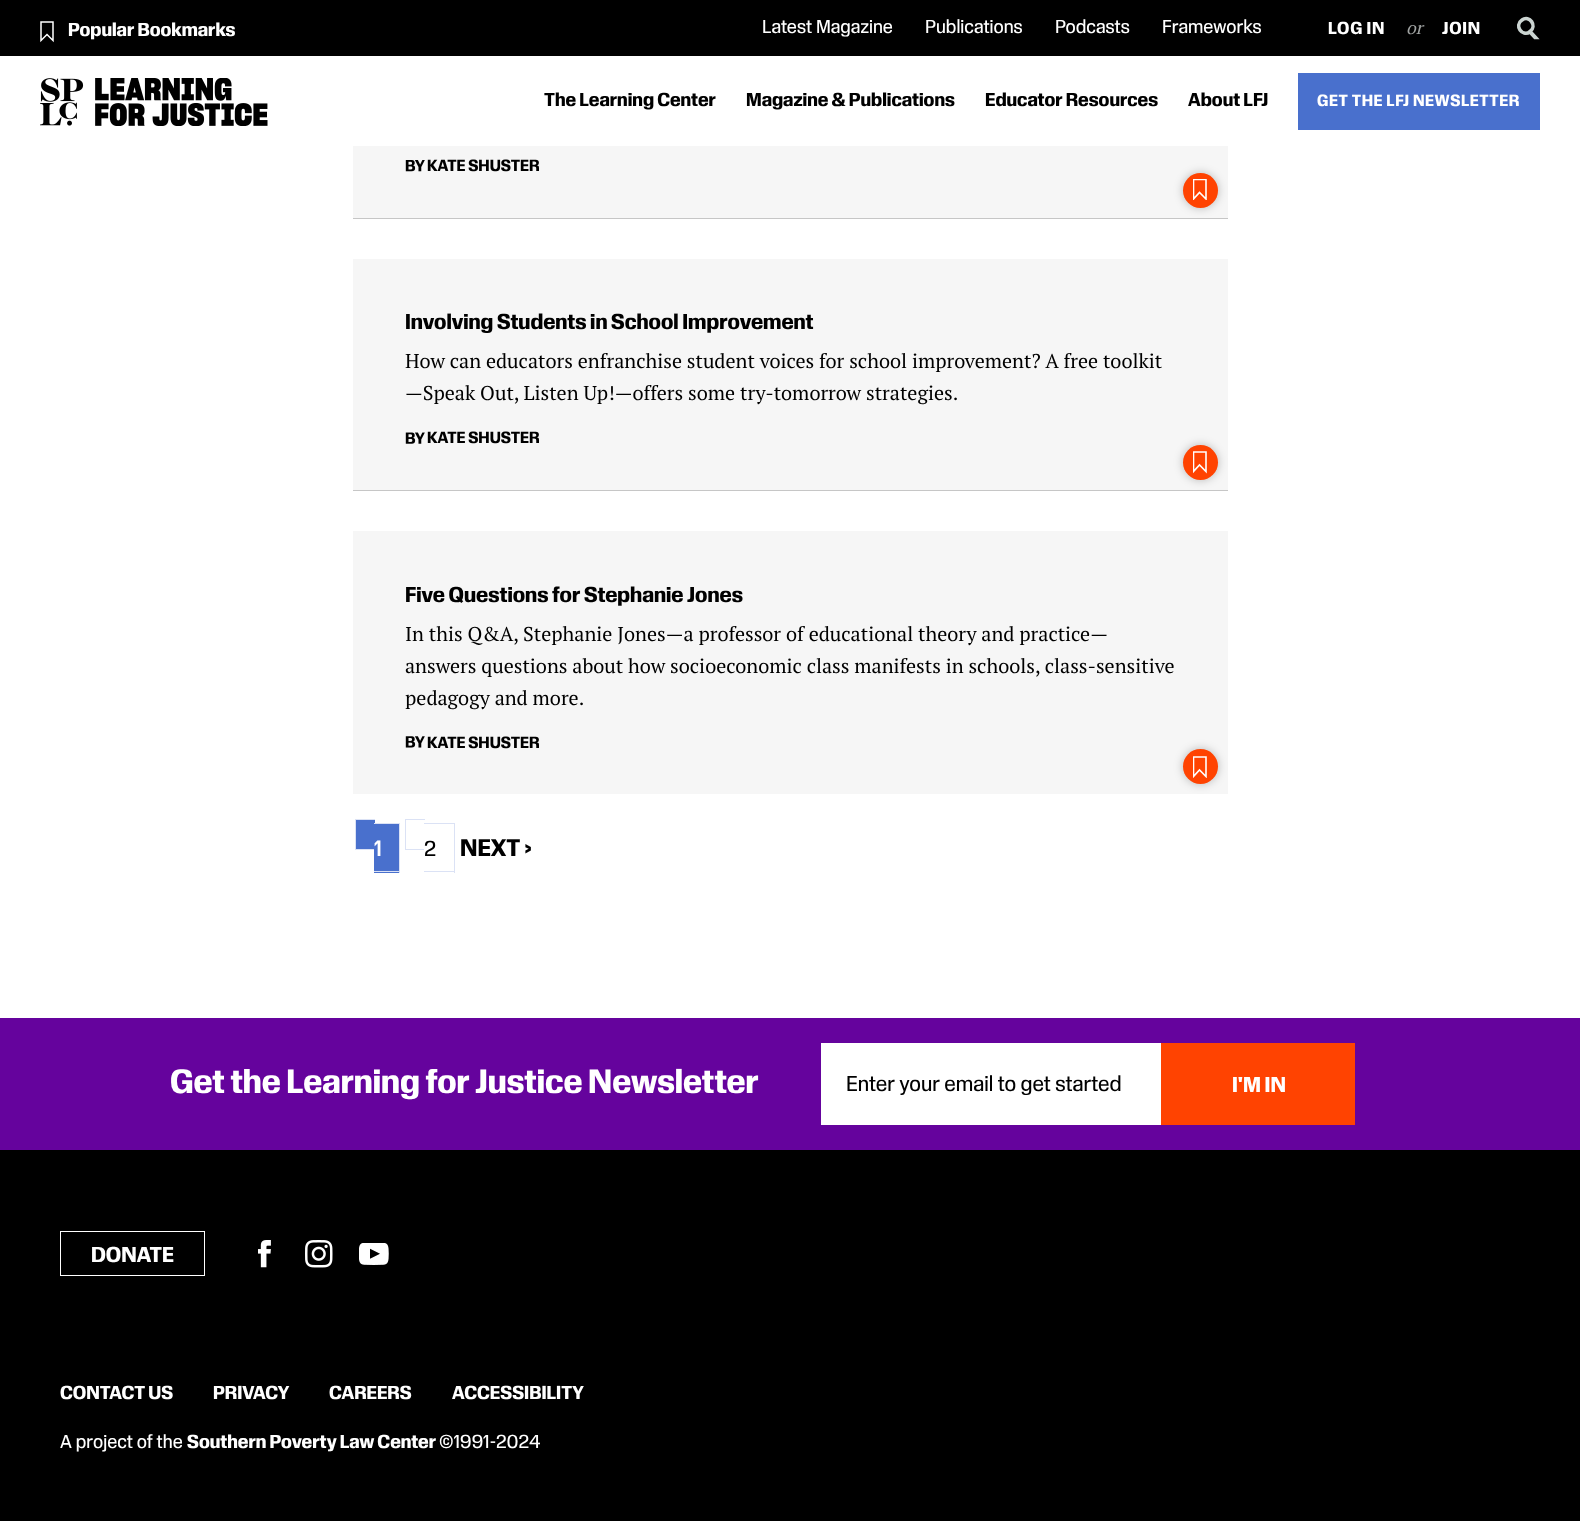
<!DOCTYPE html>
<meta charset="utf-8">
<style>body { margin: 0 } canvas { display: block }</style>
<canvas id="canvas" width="1580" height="1521"></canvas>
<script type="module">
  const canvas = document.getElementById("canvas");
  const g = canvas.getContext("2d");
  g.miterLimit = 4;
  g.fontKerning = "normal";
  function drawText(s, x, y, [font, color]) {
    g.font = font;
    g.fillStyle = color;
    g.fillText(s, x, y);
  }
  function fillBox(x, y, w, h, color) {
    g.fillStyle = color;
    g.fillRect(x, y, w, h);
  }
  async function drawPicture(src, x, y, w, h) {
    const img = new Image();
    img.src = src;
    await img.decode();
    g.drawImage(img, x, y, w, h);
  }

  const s1 = ["bold 17.5px 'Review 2'", "#FFFFFF"];
  const s2 = ["17.5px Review", "#FFFFFF"];
  const s3 = ["bold 16px 'Review 2'", "#FFFFFF"];
  const s4 = ["italic 17.5px PT Serif", "#A0A3A2"];
  const s5 = ["bold 17.5px 'Review 2'", "#000000"];
  const s6 = ["bold 15px 'Review 2'", "#FFFFFF"];
  const s7 = ["bold 15px 'Review 2'", "#000000"];
  const s8 = ["bold 20px 'Review 2'", "#000000"];
  const s9 = ["20px PT Serif", "#000000"];
  const s10 = ["bold 20px Review", "#FFFFFF"];
  const s11 = ["20px Review", "#000000"];
  const s12 = ["bold 22.5px 'Review 2'", "#000000"];
  const s13 = ["bold 31.25px 'Review 2'", "#FFFFFF"];
  const s14 = ["bold 20px 'Review 2'", "#FFFFFF"];

  fillBox(0, 0, 1580, 1521, "#FFFFFF");
  fillBox(0, 0, 1580, 56, "#000000");
  g.beginPath();
  g.moveTo(41, 40.5);
  g.lineTo(41, 22);
  g.lineTo(53, 22);
  g.lineTo(53, 40.5);
  g.lineTo(47, 34.5);
  g.closePath();
  g.strokeStyle = "#FFFFFF";
  g.lineWidth = 1.5;
  g.stroke();
  drawText("Popular Bookmarks", 68, 36, s1);
  drawText("Latest Magazine", 762, 33, s2);
  drawText("Publications", 925, 33, s2);
  drawText("Podcasts", 1055, 33, s2);
  drawText("Frameworks", 1162, 33, s2);
  g.letterSpacing = "0.75px";
  drawText("LOG IN", 1328, 34, s3);
  g.letterSpacing = "0px";
  drawText("or", 1406, 34, s4);
  g.letterSpacing = "0.75px";
  drawText("JOIN", 1442, 34, s3);
  g.beginPath();
  g.moveTo(1530, 31.5);
  g.bezierCurveTo(1537.5, 26, 1529.5, 14.5, 1522, 20);
  g.bezierCurveTo(1514, 25.5, 1522, 37, 1530, 32);
  g.lineTo(1535, 37.5);
  g.lineTo(1535.5, 37.5);
  g.closePath();
  g.strokeStyle = "#CBD4D1";
  g.lineWidth = 3.6;
  g.stroke();
  await drawPicture("pic1.png", 40, 78, 44, 48);
  await drawPicture("pic2.png", 95, 78, 173, 48);
  g.letterSpacing = "0px";
  drawText("The Learning Center", 544, 106, s5);
  drawText("Magazine & Publications", 746, 106, s5);
  drawText("Educator Resources", 985, 106, s5);
  drawText("About LFJ", 1188, 106, s5);
  fillBox(1298, 73, 242, 57, "#4970CD");
  g.letterSpacing = "0.6px";
  drawText("GET THE LFJ NEWSLETTER", 1317, 106, s6);
  fillBox(353, 146, 875, 72, "#F6F6F6");
  fillBox(353, 218, 875, 1, "#C6C6C6");
  await drawPicture("pic3.png", 405, 160, 20, 12);
  g.letterSpacing = "0px";
  drawText("KATE SHUSTER", 427, 171, s7);
  g.fillStyle = "rgba(0, 0, 0, 0.25)";
  g.filter = "blur(5px)";
  g.beginPath();
  g.roundRect(1183, 173, 35, 35, 17.5);
  g.fill();
  g.filter = "none";
  g.fillStyle = "#FF4301";
  g.beginPath();
  g.arc(1200.5, 190.5, 17.5, 0, Math.PI * 2);
  g.fill();
  g.save();
  g.beginPath();
  g.rect(1193, 179, 15, 21);
  g.clip();
  g.beginPath();
  g.moveTo(1193.5, 199);
  g.lineTo(1193.5, 179.5);
  g.lineTo(1206, 179.5);
  g.lineTo(1206, 199);
  g.lineTo(1199.5, 192.5);
  g.closePath();
  g.strokeStyle = "#FFFFFF";
  g.lineWidth = 1.6;
  g.stroke();
  g.restore();
  fillBox(353, 259, 875, 231, "#F6F6F6");
  fillBox(353, 490, 875, 1, "#C6C6C6");
  drawText("Involving Students in School Improvement", 405, 329, s8);
  drawText("How can educators enfranchise student voices for school improvement? A free toolkit", 405, 368, s9);
  drawText("—Speak Out, Listen Up!—offers some try-tomorrow strategies.", 405, 400, s9);
  await drawPicture("pic4.png", 405, 432, 20, 12);
  drawText("KATE SHUSTER", 427, 443, s7);
  g.fillStyle = "rgba(0, 0, 0, 0.25)";
  g.filter = "blur(5px)";
  g.beginPath();
  g.roundRect(1183, 445, 35, 35, 17.5);
  g.fill();
  g.filter = "none";
  g.fillStyle = "#FF4301";
  g.beginPath();
  g.arc(1200.5, 462.5, 17.5, 0, Math.PI * 2);
  g.fill();
  g.save();
  g.beginPath();
  g.rect(1193, 451, 15, 23);
  g.clip();
  g.beginPath();
  g.moveTo(1193.5, 471.5);
  g.lineTo(1193.5, 452);
  g.lineTo(1206, 452);
  g.lineTo(1206, 471.5);
  g.lineTo(1199.5, 465);
  g.closePath();
  g.strokeStyle = "#FFFFFF";
  g.lineWidth = 1.6;
  g.stroke();
  g.restore();
  fillBox(353, 531, 875, 263, "#F6F6F6");
  drawText("Five Questions for Stephanie Jones", 405, 602, s8);
  drawText("In this Q&A, Stephanie Jones—a professor of educational theory and practice—", 405, 641, s9);
  drawText("answers questions about how socioeconomic class manifests in schools, class-sensitive", 405, 673, s9);
  drawText("pedagogy and more.", 405, 705, s9);
  await drawPicture("pic5.png", 405, 736, 20, 12);
  drawText("KATE SHUSTER", 427, 748, s7);
  g.fillStyle = "rgba(0, 0, 0, 0.25)";
  g.filter = "blur(5px)";
  g.beginPath();
  g.roundRect(1183, 749, 35, 35, 17.5);
  g.fill();
  g.filter = "none";
  g.fillStyle = "#FF4301";
  g.beginPath();
  g.arc(1200.5, 766.5, 17.5, 0, Math.PI * 2);
  g.fill();
  g.save();
  g.beginPath();
  g.rect(1193, 756, 15, 22);
  g.clip();
  g.beginPath();
  g.moveTo(1193.5, 776.5);
  g.lineTo(1193.5, 757);
  g.lineTo(1206, 757);
  g.lineTo(1206, 776.5);
  g.lineTo(1199.5, 770);
  g.closePath();
  g.strokeStyle = "#FFFFFF";
  g.lineWidth = 1.6;
  g.stroke();
  g.restore();
  fillBox(356, 820, 19, 29, "#4970CD");
  fillBox(355, 849, 20, 1, "#DBE2F5");
  fillBox(374, 824, 25, 49, "#4970CD");
  drawText("1", 374, 856, s10);
  fillBox(355, 819, 20, 1, "#DBE2F5");
  fillBox(355, 819, 1, 31, "#DBE2F5");
  fillBox(374, 823, 26, 1, "#DBE2F5");
  fillBox(399, 823, 1, 50, "#DBE2F5");
  fillBox(374, 871, 26, 1, "#DBE2F5");
  fillBox(405, 849, 20, 1, "#DBE2F5");
  fillBox(424, 849, 1, 1, "#FFFFFF");
  drawText("2", 424, 856, s11);
  fillBox(405, 819, 20, 1, "#DBE2F5");
  fillBox(405, 819, 1, 31, "#DBE2F5");
  fillBox(424, 823, 31, 1, "#DBE2F5");
  fillBox(454, 823, 1, 50, "#DBE2F5");
  fillBox(424, 871, 31, 1, "#DBE2F5");
  drawText("NEXT ›", 460, 856, s12);
  fillBox(0, 1018, 1580, 132, "#65039D");
  drawText("Get the Learning for Justice Newsletter", 170, 1093, s13);
  fillBox(821, 1043, 340, 82, "#FFFFFF");
  drawText("Enter your email to get started", 846, 1091, s11);
  fillBox(1161, 1043, 194, 82, "#FF4301");
  drawText("I'M IN", 1232, 1092, s14);
  fillBox(0, 1150, 1580, 371, "#000000");
  g.strokeStyle = "#FFFFFF";
  g.lineWidth = 1;
  g.strokeRect(60.5, 1231.5, 144, 44);
  drawText("DONATE", 91, 1262, s14);
  await drawPicture("pic6.png", 258, 1240, 13, 28);
  await drawPicture("pic7.png", 305, 1240, 28, 28);
  await drawPicture("pic8.png", 359, 1243, 30, 22);
  drawText("CONTACT US", 60, 1399, s1);
  drawText("PRIVACY", 213, 1399, s1);
  drawText("CAREERS", 329, 1399, s1);
  drawText("ACCESSIBILITY", 452, 1399, s1);
  drawText("A project of the", 60, 1448, s2);
  drawText("Southern Poverty Law Center", 187, 1448, s1);
  drawText("©1991-2024", 439, 1448, s2);
</script>
